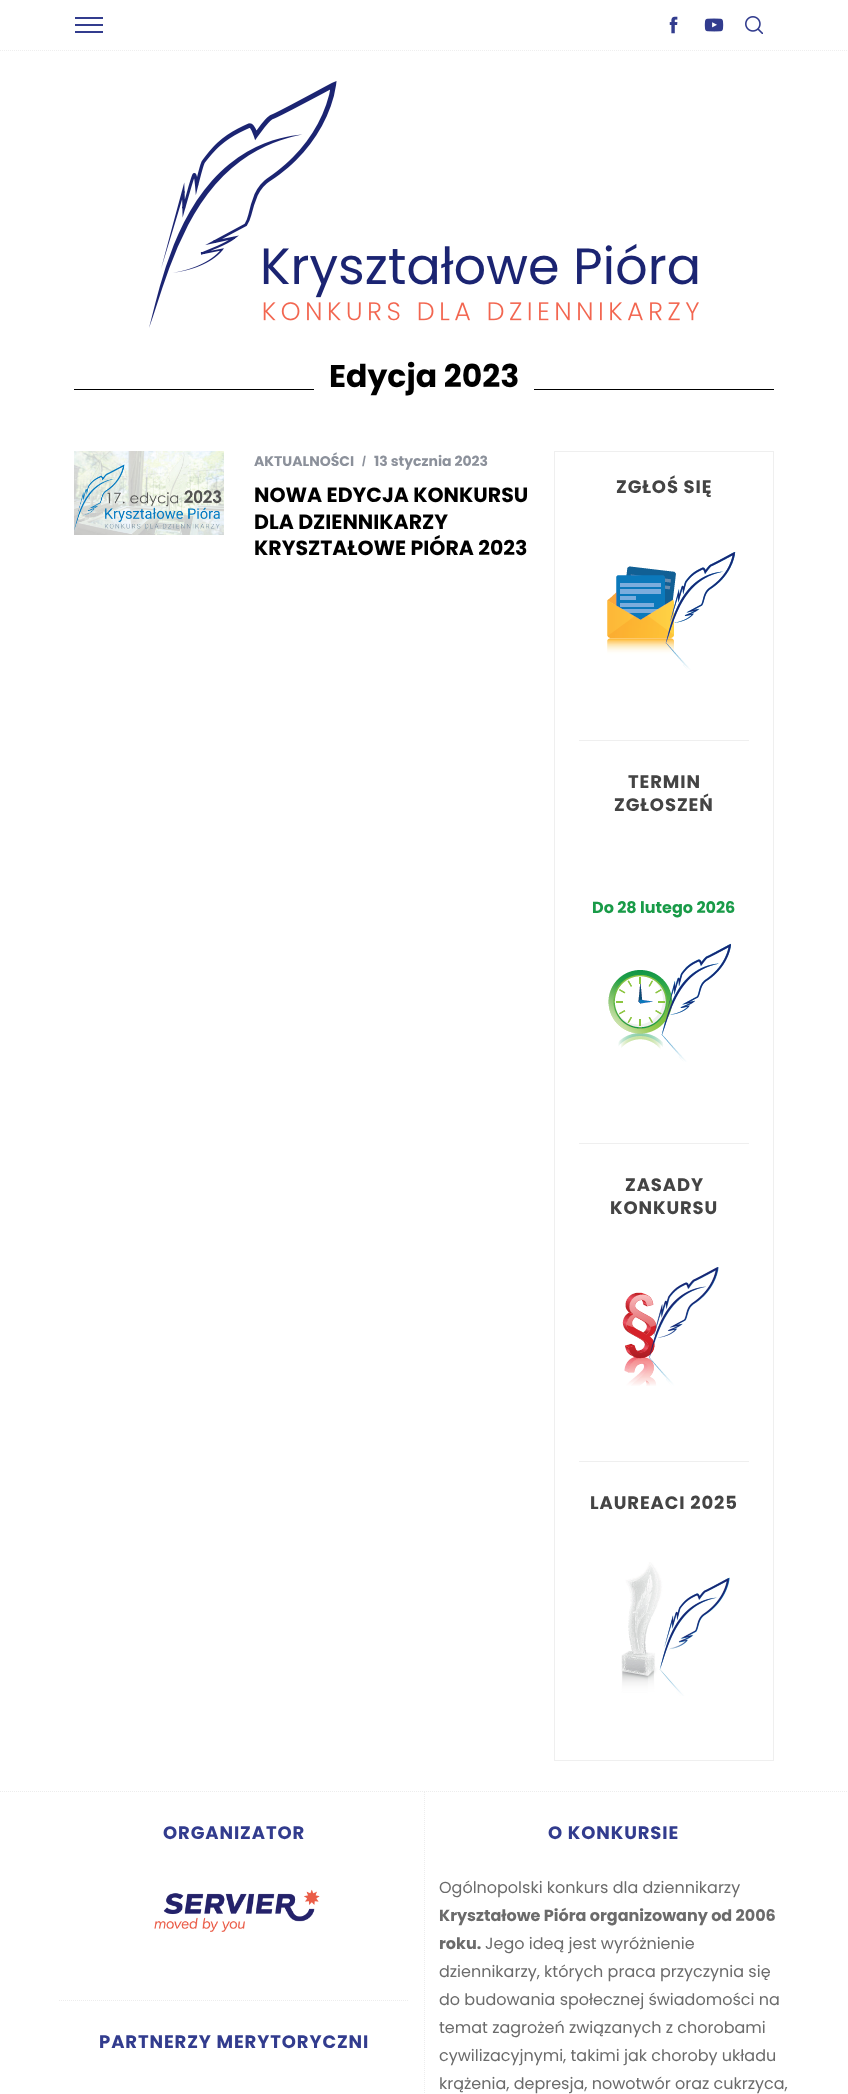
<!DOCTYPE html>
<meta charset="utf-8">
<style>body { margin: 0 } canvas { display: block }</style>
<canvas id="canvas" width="848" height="2094"></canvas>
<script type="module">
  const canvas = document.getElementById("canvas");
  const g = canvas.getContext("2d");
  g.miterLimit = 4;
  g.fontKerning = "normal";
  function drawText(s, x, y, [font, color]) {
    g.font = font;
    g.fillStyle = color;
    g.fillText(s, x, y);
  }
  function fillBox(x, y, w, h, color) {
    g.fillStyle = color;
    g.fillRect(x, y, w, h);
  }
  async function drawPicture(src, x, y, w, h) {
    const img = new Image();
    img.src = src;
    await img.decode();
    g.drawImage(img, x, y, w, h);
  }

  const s1 = ["bold 31.5px Poppins", "#000000"];
  const s2 = ["bold 14px Poppins", "#8C919B"];
  const s3 = ["bold 14px Liberation Sans", "#8C919B"];
  const s4 = ["bold 20.5px Poppins", "#000000"];
  const s5 = ["bold 18px Poppins", "#444444"];
  const s6 = ["bold 16px Poppins", "#199B48"];
  const s7 = ["bold 18px Poppins", "#323C8E"];
  const s8 = ["16px Poppins", "#6B6B6B"];
  const s9 = ["bold 16px Poppins", "#6B6B6B"];

  fillBox(0, 0, 848, 2094, "#FFFFFF");
  g.beginPath();
  g.moveTo(0, 50.5);
  g.lineTo(848, 50.5);
  g.strokeStyle = "#EFEFEF";
  g.setLineDash([1, 1]);
  g.stroke();
  fillBox(75, 24, 28, 2, "#323C8E");
  fillBox(75, 17, 28, 2, "#323C8E");
  fillBox(75, 31, 28, 2, "#323C8E");
  await drawPicture("pic1.png", 669, 16, 9, 18);
  await drawPicture("pic2.png", 704, 18, 20, 14);
  await drawPicture("pic3.png", 745, 16, 18, 18);
  await drawPicture("pic4.png", 149, 81, 550, 247);
  fillBox(74, 389, 240, 1, "#000000");
  drawText("Edycja 2023", 329, 387, s1);
  fillBox(534, 389, 240, 1, "#000000");
  await drawPicture("pic5.png", 74, 451, 150, 84);
  drawText("AKTUALNOŚCI", 254, 466, s2);
  drawText("/", 362, 466, s3);
  drawText("13 stycznia 2023", 374, 466, s2);
  drawText("NOWA EDYCJA KONKURSU", 254, 502, s4);
  drawText("DLA DZIENNIKARZY", 254, 529, s4);
  drawText("KRYSZTAŁOWE PIÓRA 2023", 254, 555, s4);
  g.setLineDash([]);
  g.strokeRect(554.5, 451.5, 219, 1309);
  fillBox(579, 740, 170, 1, "#EFEFEF");
  g.letterSpacing = "0.9px";
  drawText("ZGŁOŚ SIĘ", 616, 493, s5);
  await drawPicture("pic6.png", 607, 552, 129, 118);
  fillBox(579, 1143, 170, 1, "#EFEFEF");
  drawText("TERMIN", 628, 788, s5);
  drawText("ZGŁOSZEŃ", 614, 811, s5);
  g.letterSpacing = "0px";
  drawText("Do 28 lutego 2026", 592, 913, s6);
  await drawPicture("pic7.png", 608, 943, 123, 119);
  fillBox(579, 1461, 170, 1, "#EFEFEF");
  g.letterSpacing = "0.9px";
  drawText("ZASADY", 625, 1191, s5);
  drawText("KONKURSU", 610, 1214, s5);
  await drawPicture("pic8.png", 622, 1267, 97, 119);
  drawText("LAUREACI 2025", 590, 1509, s5);
  await drawPicture("pic9.png", 621, 1562, 109, 134);
  g.beginPath();
  g.moveTo(0, 1791.5);
  g.lineTo(848, 1791.5);
  g.strokeStyle = "#EDEDED";
  g.setLineDash([1, 1]);
  g.stroke();
  g.beginPath();
  g.moveTo(59, 2000.5);
  g.lineTo(409, 2000.5);
  g.stroke();
  drawText("ORGANIZATOR", 163, 1839, s7);
  await drawPicture("pic10.png", 154, 1889, 166, 43);
  drawText("PARTNERZY MERYTORYCZNI", 99, 2048, s7);
  g.beginPath();
  g.moveTo(424.5, 1792);
  g.lineTo(424.5, 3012);
  g.stroke();
  drawText("O KONKURSIE", 548, 1839, s7);
  g.letterSpacing = "0px";
  drawText("Ogólnopolski konkurs dla dziennikarzy", 439, 1893, s8);
  drawText("Kryształowe Pióra organizowany od 2006", 439, 1921, s9);
  drawText("roku.", 439, 1949, s9);
  drawText("Jego ideą jest wyróżnienie", 485, 1949, s8);
  drawText("dziennikarzy, których praca przyczynia się", 439, 1977, s8);
  drawText("do budowania społecznej świadomości na", 439, 2005, s8);
  drawText("temat zagrożeń związanych z chorobami", 439, 2033, s8);
  drawText("cywilizacyjnymi, takimi jak choroby układu", 439, 2061, s8);
  drawText("krążenia, depresja, nowotwór oraz cukrzyca,", 439, 2089, s8);
</script>
